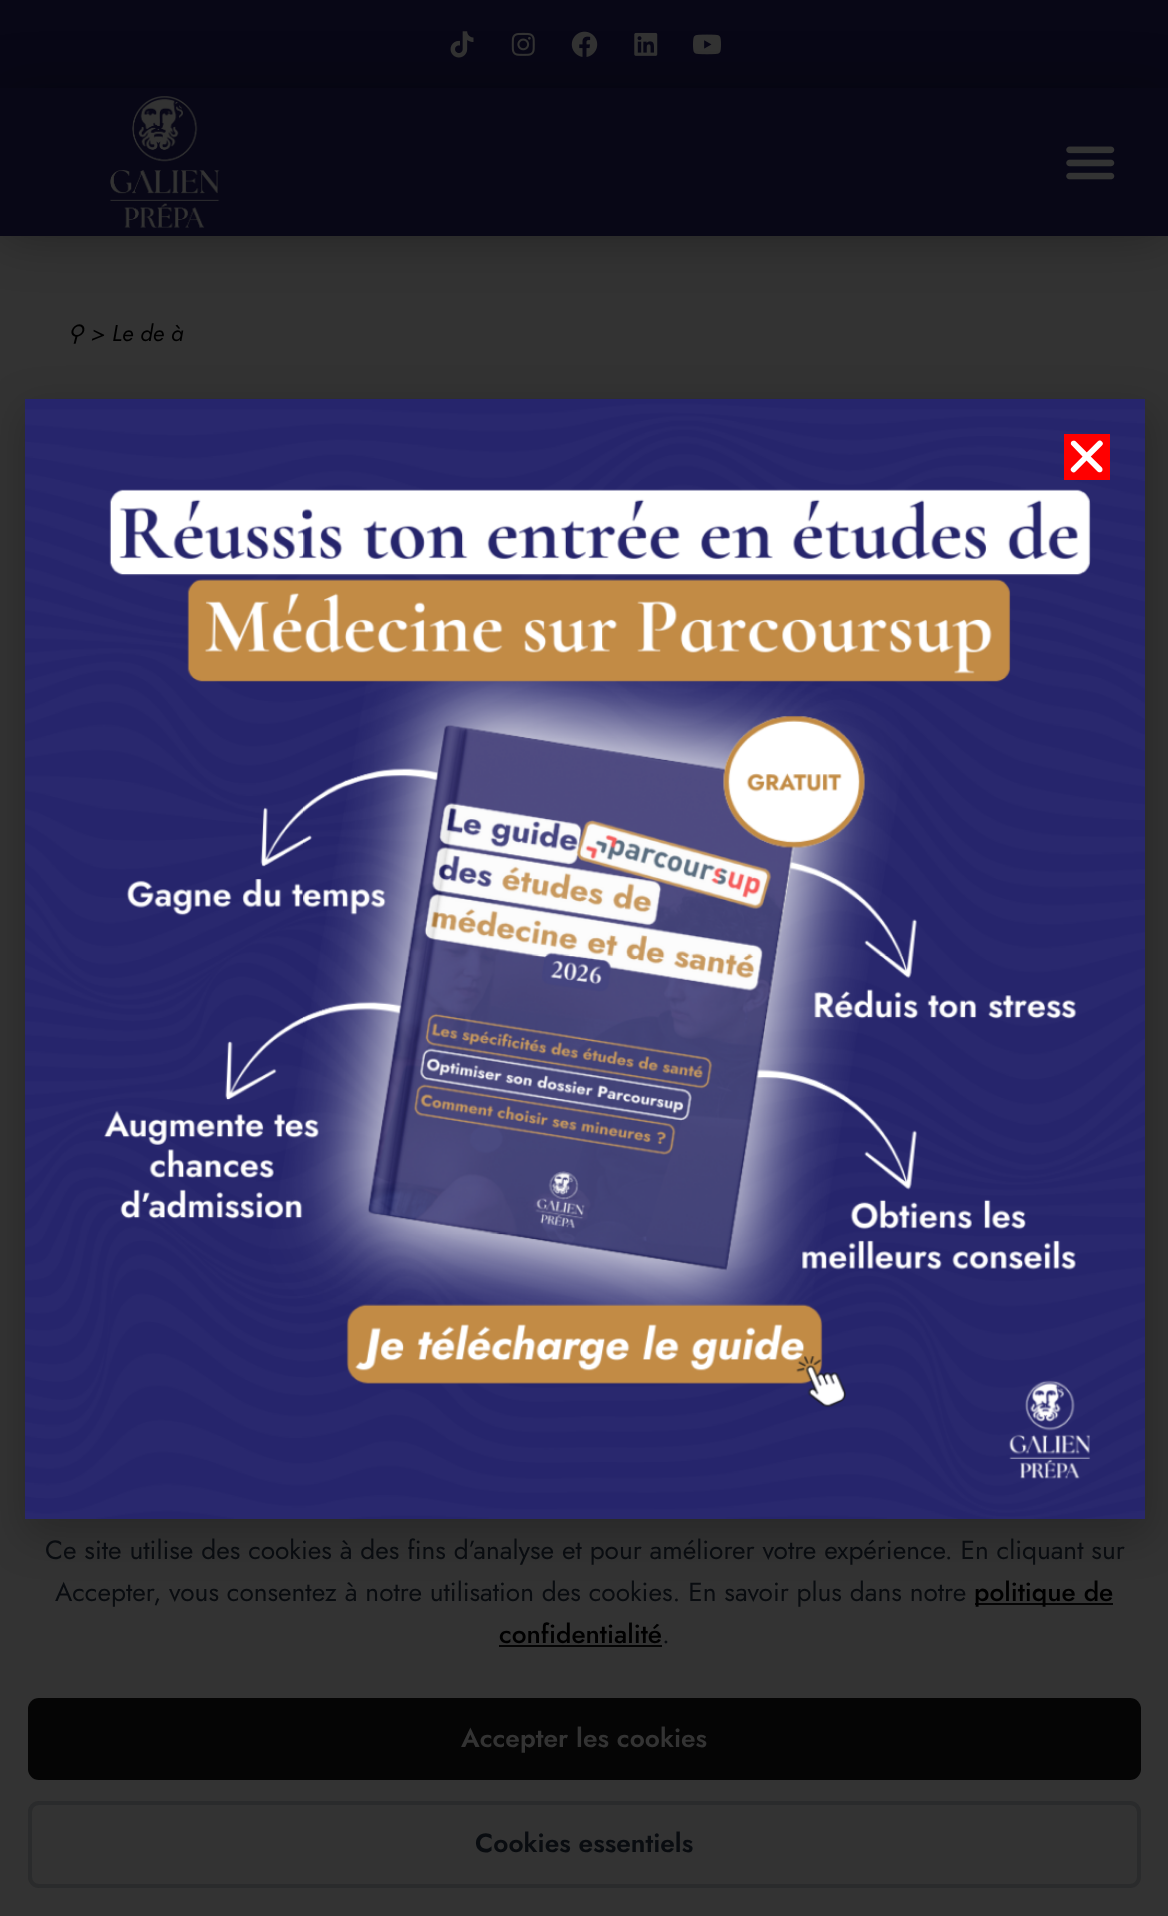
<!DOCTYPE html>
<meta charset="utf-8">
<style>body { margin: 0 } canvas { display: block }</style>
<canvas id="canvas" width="1168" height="1916"></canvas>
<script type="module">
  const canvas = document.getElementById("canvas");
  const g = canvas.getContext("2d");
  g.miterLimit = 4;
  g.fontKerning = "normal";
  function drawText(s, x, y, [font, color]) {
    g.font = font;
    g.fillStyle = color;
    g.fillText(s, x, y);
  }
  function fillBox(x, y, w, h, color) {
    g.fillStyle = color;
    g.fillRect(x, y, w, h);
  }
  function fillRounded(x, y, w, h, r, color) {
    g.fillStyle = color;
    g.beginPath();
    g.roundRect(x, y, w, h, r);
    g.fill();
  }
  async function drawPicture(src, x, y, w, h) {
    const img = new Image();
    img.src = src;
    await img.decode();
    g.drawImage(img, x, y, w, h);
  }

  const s1 = ["italic 22.75px DejaVu Sans", "#000000"];
  const s2 = ["italic 22.75px Jost", "#000000"];
  const s3 = ["26.25px Jost", "#090C10"];
  const s4 = ["500 26.25px Jost", "#000000"];
  const s5 = ["600 26.25px Jost", "#333333"];
  const s6 = ["600 26.25px Jost", "#090C10"];

  fillBox(0, 0, 1168, 1916, "#333333");
  fillBox(0, 0, 1168, 88, "#080716");
  await drawPicture("pic3.png", 450, 31, 24, 27);
  await drawPicture("pic4.png", 511, 32, 24, 24);
  await drawPicture("pic5.png", 571, 31, 27, 26);
  await drawPicture("pic6.png", 634, 32, 24, 24);
  await drawPicture("pic7.png", 693, 34, 28, 21);
  g.fillStyle = "rgba(0, 0, 0, 0.3)";
  g.filter = "blur(26px)";
  g.beginPath();
  g.rect(0, 88, 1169, 148);
  g.fill();
  g.filter = "none";
  fillBox(0, 88, 1168, 148, "#080716");
  await drawPicture("pic1.png", 110, 96, 110, 132);
  await drawPicture("pic2.png", 1066, 146, 49, 34);
  drawText("⚲", 67, 341, s1);
  drawText("> Le de à", 91, 341, s2);
  g.fillStyle = "rgba(0, 0, 0, 0.2)";
  g.filter = "blur(20px)";
  g.beginPath();
  g.rect(23, 408, 1130, 1130);
  g.fill();
  g.filter = "none";
  await drawPicture("pic8.png", 25, 399, 1120, 1120);
  fillBox(1064, 434, 46, 46, "#FF0000");
  await drawPicture("pic9.png", 1070, 440, 33, 33);
  drawText("Ce site utilise des cookies à des fins d’analyse et pour améliorer votre expérience. En cliquant sur", 45, 1559, s3);
  drawText("Accepter, vous consentez à notre utilisation des cookies. En savoir plus dans notre", 55, 1601, s3);
  fillBox(975, 1603, 138, 2, "#050505");
  drawText("politique de", 974, 1601, s4);
  drawText("confidentialité", 499, 1643, s4);
  fillBox(499, 1645, 163, 2, "#050505");
  drawText(".", 662, 1643, s3);
  fillRounded(28, 1698, 1113, 82, 11, "#050505");
  drawText("Accepter les cookies", 461, 1747, s5);
  g.beginPath();
  g.roundRect(30, 1803, 1109, 83, 9);
  g.strokeStyle = "#2A2B2C";
  g.lineWidth = 4;
  g.stroke();
  drawText("Cookies essentiels", 475, 1852, s6);
</script>
